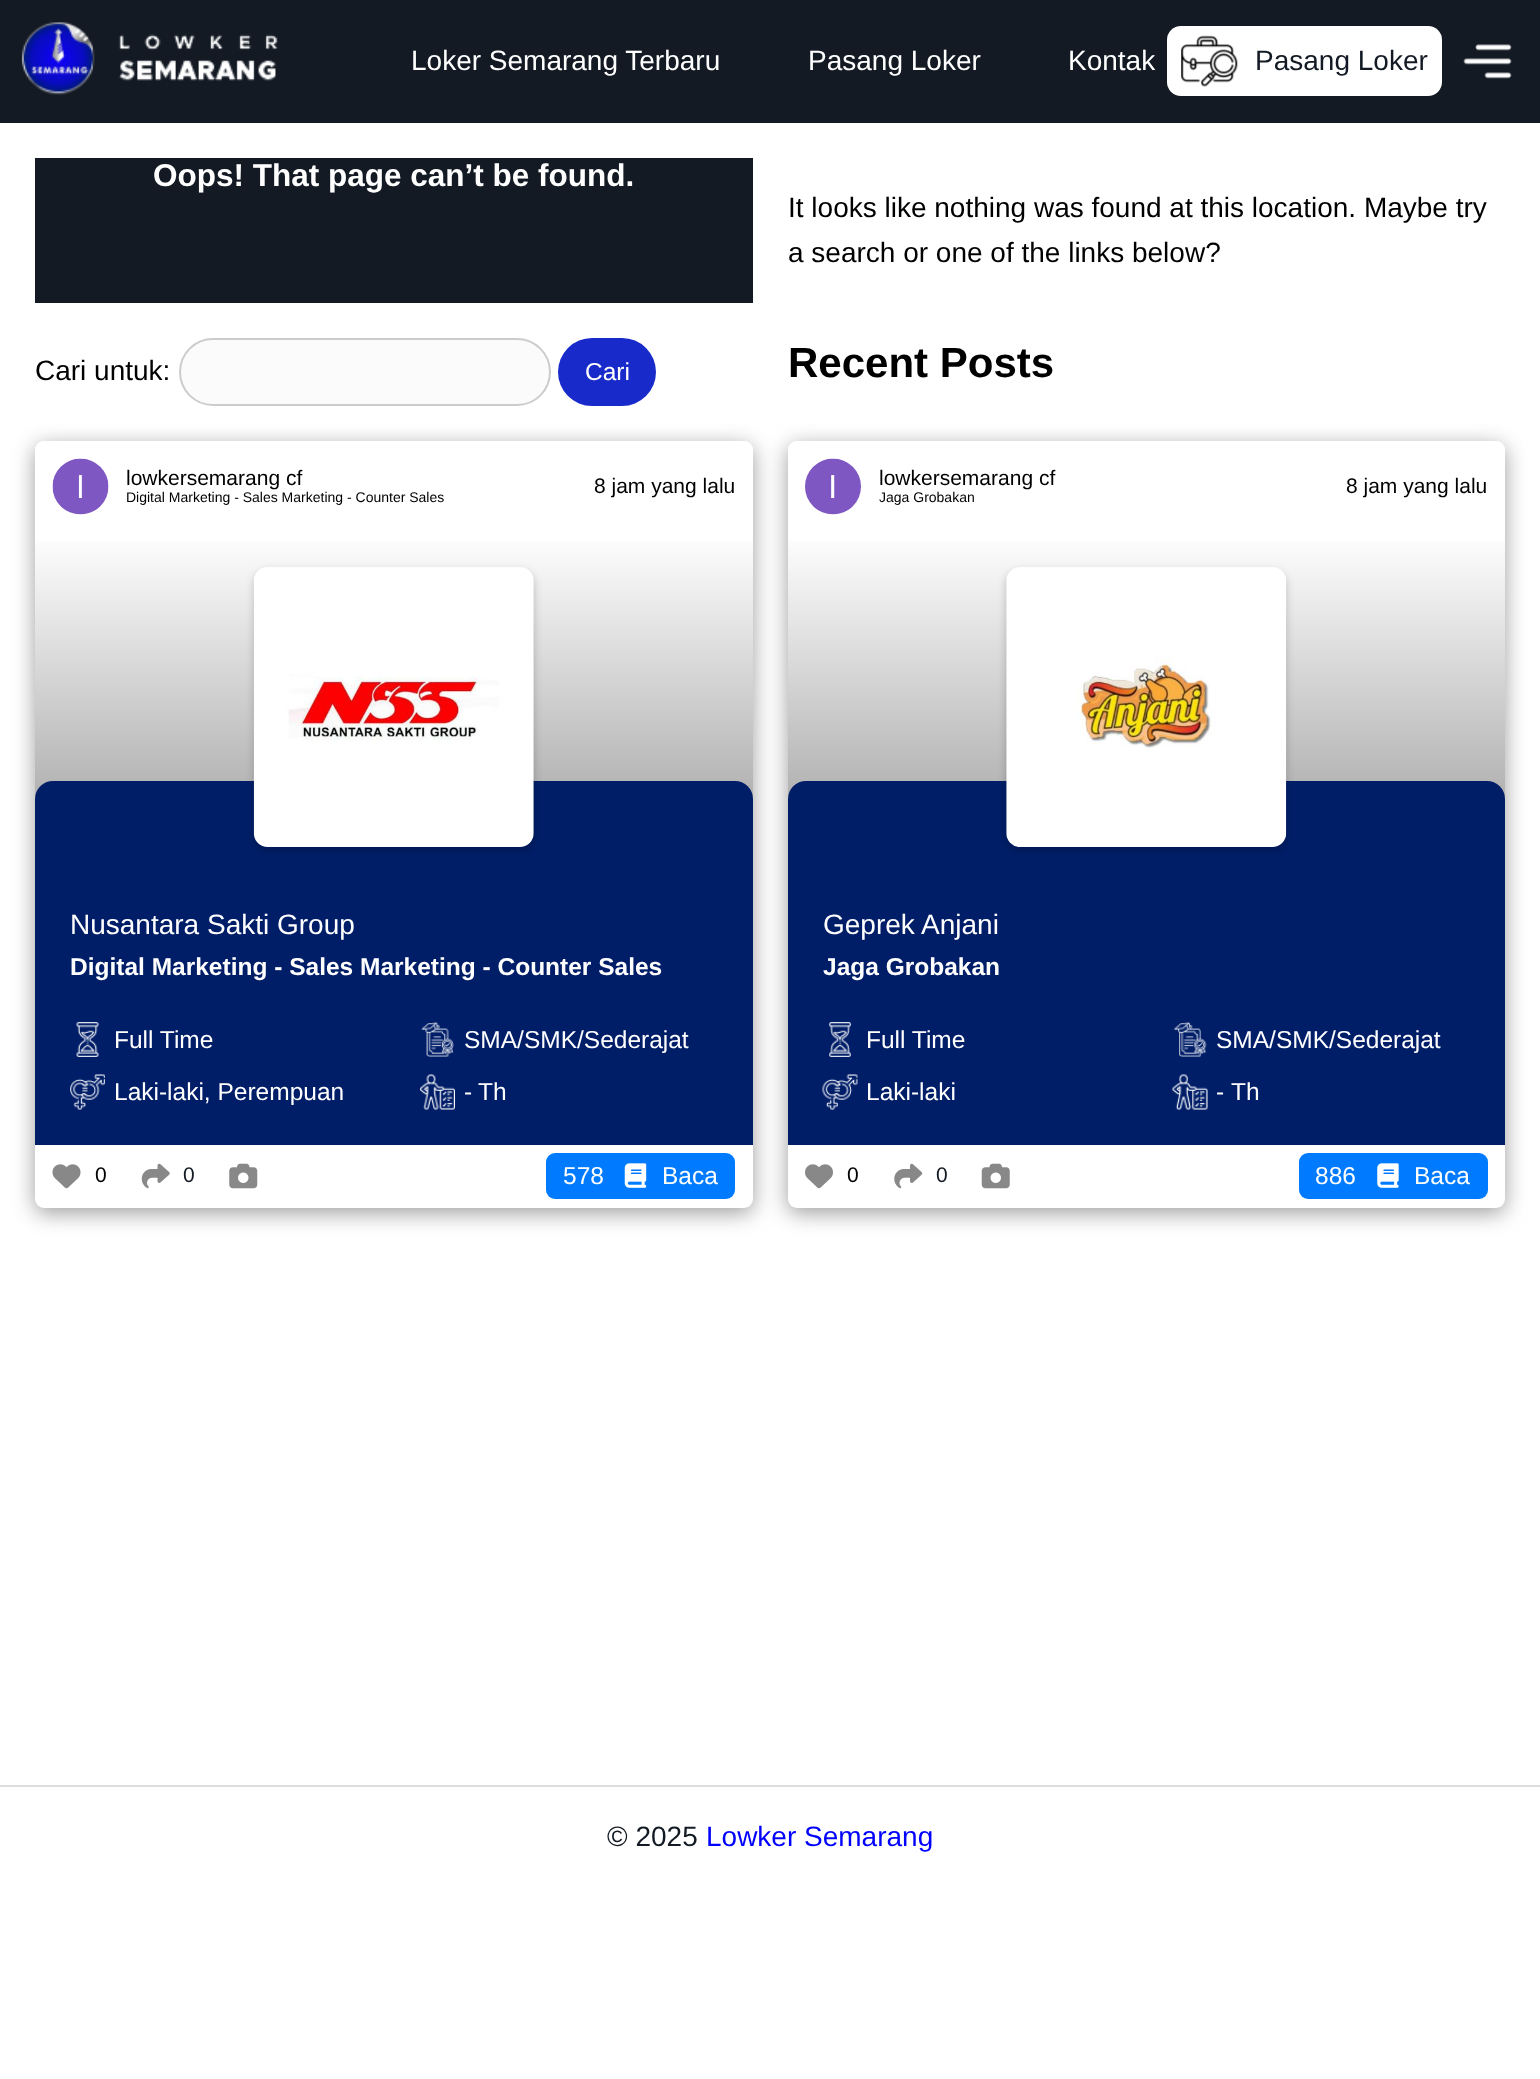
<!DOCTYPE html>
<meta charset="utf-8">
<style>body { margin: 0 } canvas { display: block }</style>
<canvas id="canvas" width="1540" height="2079"></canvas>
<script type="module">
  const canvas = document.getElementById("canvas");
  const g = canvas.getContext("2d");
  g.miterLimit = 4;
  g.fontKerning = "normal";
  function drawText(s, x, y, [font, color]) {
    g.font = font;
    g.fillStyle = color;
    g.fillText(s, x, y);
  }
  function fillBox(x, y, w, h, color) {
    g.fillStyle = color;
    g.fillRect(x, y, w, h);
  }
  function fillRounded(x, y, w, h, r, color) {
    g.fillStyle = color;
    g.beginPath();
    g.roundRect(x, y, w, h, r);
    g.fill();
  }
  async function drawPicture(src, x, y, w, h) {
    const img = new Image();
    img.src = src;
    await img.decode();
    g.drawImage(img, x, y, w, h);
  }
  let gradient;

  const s1 = ["28px Liberation Sans", "#FFFFFF"];
  const s2 = ["28px Liberation Sans", "#131A24"];
  const s3 = ["bold 31.5px Liberation Sans", "#FFFFFF"];
  const s4 = ["28px Liberation Sans", "#000000"];
  const s5 = ["24.5px Liberation Sans", "#FFFFFF"];
  const s6 = ["bold 42px Liberation Sans", "#000000"];
  const s7 = ["21px Liberation Sans", "#000000"];
  const s8 = ["14px Liberation Sans", "#000000"];
  const s9 = ["bold 24.5px Liberation Sans", "#FFFFFF"];
  const s10 = ["21px Liberation Sans", "#131A24"];
  const s11 = ["28px Liberation Sans", "#0000FF"];

  fillBox(0, 0, 1540, 2079, "#FFFFFF");
  fillBox(0, 0, 1540, 123, "#131A24");
  await drawPicture("pic1.png", 21, 22, 257, 73);
  drawText("Loker Semarang Terbaru", 411, 70, s1);
  drawText("Pasang Loker", 808, 70, s1);
  drawText("Kontak", 1068, 70, s1);
  fillRounded(1167, 26, 275, 70, 14, "#FFFFFF");
  await drawPicture("pic2.png", 1181, 35, 57, 52);
  drawText("Pasang Loker", 1255, 70, s2);
  await drawPicture("pic3.png", 1463, 44, 49, 35);
  fillBox(35, 158, 718, 145, "#131A24");
  drawText("Oops! That page can’t be found.", 153, 186, s3);
  drawText("It looks like nothing was found at this location. Maybe try", 788, 217, s4);
  drawText("a search or one of the links below?", 788, 262, s4);
  drawText("Cari untuk:", 35, 380, s4);
  g.fillStyle = "#FBFBFB";
  g.beginPath();
  g.roundRect(180, 339, 370, 66, 33);
  g.fill();
  g.strokeStyle = "#CCCCCC";
  g.lineWidth = 2;
  g.stroke();
  fillRounded(558, 338, 98, 68, 34, "#182BCA");
  drawText("Cari", 585, 380, s5);
  drawText("Recent Posts", 788, 377, s6);
  g.fillStyle = "rgba(132, 132, 133, 0.8)";
  g.filter = "blur(10.5px)";
  g.beginPath();
  g.roundRect(35, 446, 718, 767, 9);
  g.fill();
  g.filter = "none";
  fillRounded(35, 441, 718, 767, 9, "#FFFFFF");
  g.beginPath();
  g.roundRect(35, 441, 718, 91, [9, 9, 0, 0]);
  g.fill();
  await drawPicture("pic4.png", 52, 458, 57, 57);
  drawText("lowkersemarang cf", 126, 485, s7);
  drawText("Digital Marketing - Sales Marketing - Counter Sales", 126, 502, s8);
  drawText("8 jam yang lalu", 594, 493, s7);
  gradient = g.createLinearGradient(394, 1145, 394, 532);
  gradient.addColorStop(0, "#4D4D4D");
  gradient.addColorStop(1, "#FFFFFF");
  g.fillStyle = gradient;
  g.fillRect(35, 541, 718, 258);
  g.fillStyle = "#001E68";
  g.beginPath();
  g.roundRect(35, 781, 718, 364, [18, 18, 0, 0]);
  g.fill();
  g.fillStyle = "rgba(0, 0, 0, 0.2)";
  g.filter = "blur(4.5px)";
  g.beginPath();
  g.roundRect(254, 571, 280, 280, 14);
  g.fill();
  g.filter = "none";
  await drawPicture("pic5.png", 253, 567, 281, 280);
  drawText("Nusantara Sakti Group", 70, 934, s1);
  drawText("Digital Marketing - Sales Marketing - Counter Sales", 70, 975, s9);
  await drawPicture("pic6.png", 76, 1022, 23, 35);
  drawText("Full Time", 114, 1048, s5);
  await drawPicture("pic7.png", 421, 1022, 33, 35);
  drawText("SMA/SMK/Sederajat", 464, 1048, s5);
  await drawPicture("pic8.png", 70, 1074, 35, 36);
  drawText("Laki-laki, Perempuan", 114, 1100, s5);
  await drawPicture("pic9.png", 420, 1074, 35, 36);
  drawText("-", 464, 1100, s5);
  drawText("Th", 478, 1100, s5);
  await drawPicture("pic10.png", 52, 1164, 29, 25);
  drawText("0", 95, 1182, s7);
  await drawPicture("pic11.png", 141, 1163, 29, 26);
  drawText("0", 183, 1182, s10);
  await drawPicture("pic12.png", 229, 1163, 29, 26);
  fillRounded(546, 1153, 189, 46, 9, "#007BFF");
  drawText("578", 563, 1184, s5);
  await drawPicture("pic13.png", 624, 1163, 23, 25);
  drawText("Baca", 662, 1184, s5);
  g.fillStyle = "rgba(132, 132, 133, 0.8)";
  g.filter = "blur(10.5px)";
  g.beginPath();
  g.roundRect(788, 446, 717, 767, 9);
  g.fill();
  g.filter = "none";
  fillRounded(788, 441, 717, 767, 9, "#FFFFFF");
  g.beginPath();
  g.roundRect(788, 441, 717, 91, [9, 9, 0, 0]);
  g.fill();
  await drawPicture("pic14.png", 805, 458, 56, 57);
  drawText("lowkersemarang cf", 879, 485, s7);
  drawText("Jaga Grobakan", 879, 502, s8);
  drawText("8 jam yang lalu", 1346, 493, s7);
  gradient = g.createLinearGradient(1146, 1145, 1146, 532);
  gradient.addColorStop(0, "#4D4D4D");
  gradient.addColorStop(1, "#FFFFFF");
  g.fillStyle = gradient;
  g.fillRect(788, 541, 717, 258);
  g.fillStyle = "#001E68";
  g.beginPath();
  g.roundRect(788, 781, 717, 364, [18, 18, 0, 0]);
  g.fill();
  g.fillStyle = "rgba(0, 0, 0, 0.2)";
  g.filter = "blur(4.5px)";
  g.beginPath();
  g.roundRect(1006, 571, 280, 280, 14);
  g.fill();
  g.filter = "none";
  await drawPicture("pic15.png", 1006, 567, 281, 280);
  drawText("Geprek Anjani", 823, 934, s1);
  drawText("Jaga Grobakan", 823, 975, s9);
  await drawPicture("pic16.png", 829, 1022, 22, 35);
  drawText("Full Time", 866, 1048, s5);
  await drawPicture("pic17.png", 1173, 1022, 34, 35);
  drawText("SMA/SMK/Sederajat", 1216, 1048, s5);
  await drawPicture("pic18.png", 822, 1074, 36, 36);
  drawText("Laki-laki", 866, 1100, s5);
  await drawPicture("pic19.png", 1172, 1074, 36, 36);
  drawText("-", 1216, 1100, s5);
  drawText("Th", 1231, 1100, s5);
  await drawPicture("pic20.png", 805, 1164, 28, 25);
  drawText("0", 847, 1182, s7);
  await drawPicture("pic21.png", 894, 1163, 29, 26);
  drawText("0", 936, 1182, s10);
  await drawPicture("pic22.png", 981, 1163, 29, 26);
  fillRounded(1299, 1153, 189, 46, 9, "#007BFF");
  drawText("886", 1315, 1184, s5);
  await drawPicture("pic23.png", 1377, 1163, 22, 25);
  drawText("Baca", 1414, 1184, s5);
  fillBox(0, 1785, 1540, 2, "#DDDDDD");
  drawText("© 2025", 607, 1846, s2);
  drawText("Lowker Semarang", 706, 1846, s11);
</script>
